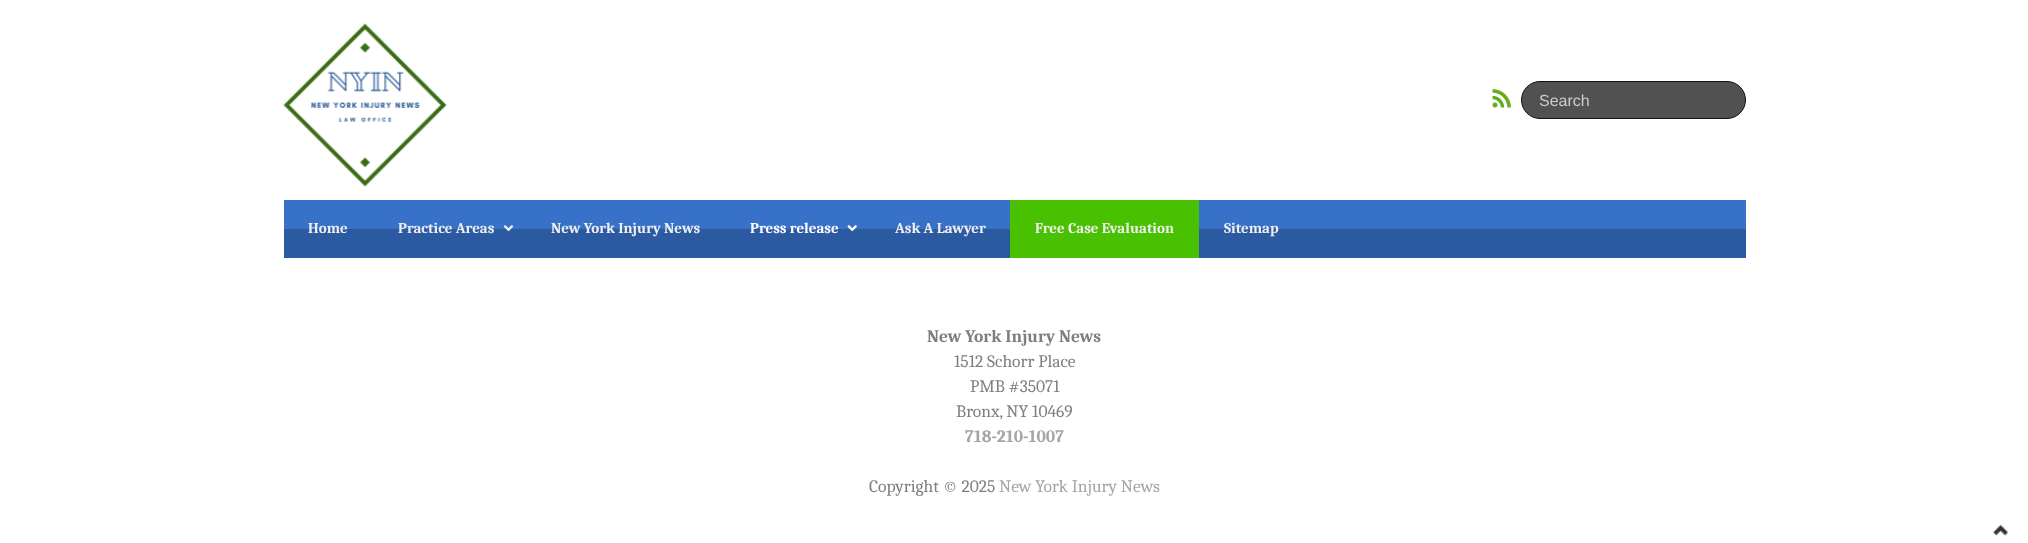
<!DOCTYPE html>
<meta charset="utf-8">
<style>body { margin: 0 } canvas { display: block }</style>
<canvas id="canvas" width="2028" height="543"></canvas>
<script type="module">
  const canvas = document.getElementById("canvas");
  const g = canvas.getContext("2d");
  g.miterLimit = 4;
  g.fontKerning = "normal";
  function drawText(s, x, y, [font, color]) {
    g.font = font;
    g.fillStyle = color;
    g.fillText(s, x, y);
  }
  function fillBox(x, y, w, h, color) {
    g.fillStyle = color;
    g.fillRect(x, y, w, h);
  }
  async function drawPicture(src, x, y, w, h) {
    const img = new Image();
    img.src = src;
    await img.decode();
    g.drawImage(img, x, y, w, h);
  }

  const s1 = ["16px Liberation Sans", "#CCCCCC"];
  const s2 = ["bold 15px Caladea", "#EEEEEE"];
  const s3 = ["bold 15px Caladea", "#FFFFFF"];
  const s4 = ["bold 17.5px Caladea", "#7F7F7F"];
  const s5 = ["17.5px Caladea", "#7F7F7F"];
  const s6 = ["bold 17.5px Caladea", "#A5A5A5"];
  const s7 = ["17.5px Caladea", "#A5A5A5"];

  fillBox(0, 0, 2028, 543, "#FFFFFF");
  await drawPicture("pic1.png", 283, 23, 164, 164);
  await drawPicture("pic2.png", 1492, 89, 19, 19);
  g.fillStyle = "#515151";
  g.beginPath();
  g.roundRect(1521.5, 81.5, 224, 37, 18.5);
  g.fill();
  g.strokeStyle = "#111111";
  g.stroke();
  drawText("Search", 1539, 106, s1);
  fillBox(284, 200, 1462, 29, "#3771C8");
  fillBox(284, 229, 1462, 29, "#2C5AA0");
  drawText("Home", 308, 233, s2);
  drawText("Practice Areas", 398, 233, s2);
  await drawPicture("pic3.png", 503, 225, 11, 7);
  drawText("New York Injury News", 551, 233, s2);
  drawText("Press release", 750, 233, s3);
  await drawPicture("pic4.png", 847, 225, 10, 7);
  drawText("Ask A Lawyer", 895, 233, s2);
  fillBox(1010, 200, 189, 58, "#4AC100");
  drawText("Free Case Evaluation", 1035, 233, s2);
  drawText("Sitemap", 1224, 233, s2);
  drawText("New York Injury News", 927, 342, s4);
  drawText("1512 Schorr Place", 954, 367, s5);
  drawText("PMB #35071", 970, 392, s5);
  drawText("Bronx, NY 10469", 956, 417, s5);
  drawText("718-210-1007", 965, 442, s6);
  drawText("Copyright © 2025", 869, 492, s5);
  drawText("New York Injury News", 999, 492, s7);
  await drawPicture("pic5.png", 1993, 524, 15, 12);
</script>
